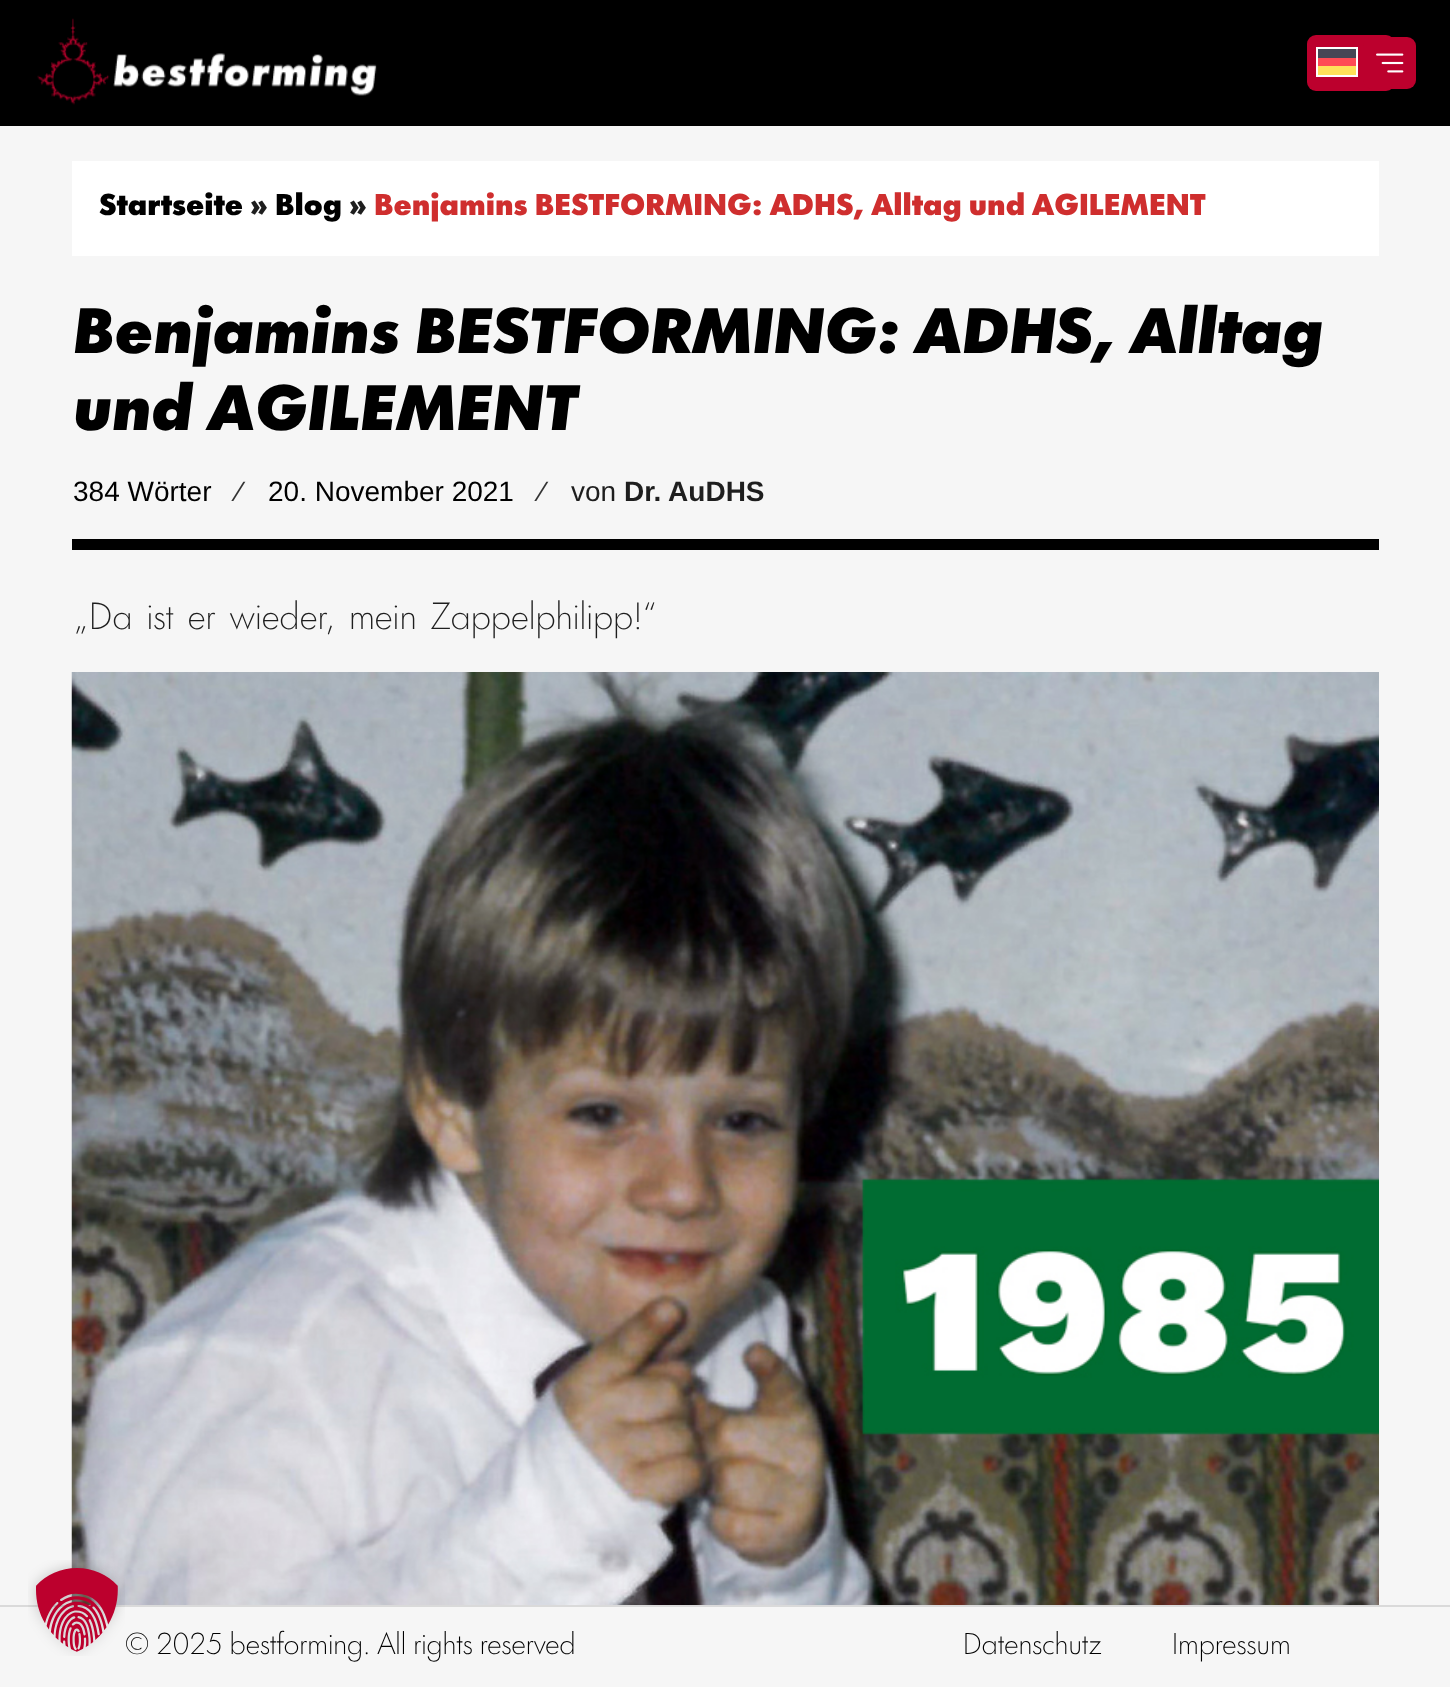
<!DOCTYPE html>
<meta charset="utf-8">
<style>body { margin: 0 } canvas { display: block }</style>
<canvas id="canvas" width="1450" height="1687"></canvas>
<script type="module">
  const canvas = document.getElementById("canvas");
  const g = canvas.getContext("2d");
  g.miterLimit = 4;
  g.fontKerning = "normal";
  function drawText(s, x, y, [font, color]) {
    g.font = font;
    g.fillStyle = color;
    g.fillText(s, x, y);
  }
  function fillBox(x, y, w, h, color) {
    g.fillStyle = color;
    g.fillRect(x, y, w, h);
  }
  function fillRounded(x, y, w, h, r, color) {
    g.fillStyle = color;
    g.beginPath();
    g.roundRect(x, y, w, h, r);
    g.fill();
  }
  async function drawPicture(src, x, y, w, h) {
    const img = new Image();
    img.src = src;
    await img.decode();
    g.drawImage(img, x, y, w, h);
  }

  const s1 = ["900 28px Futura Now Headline", "#000000"];
  const s2 = ["900 28px Futura Now Headline", "#1E1E1E"];
  const s3 = ["900 28px Futura Now Headline", "#CF2E2E"];
  const s4 = ["italic 900 59.5px Futura Now Headline", "#000000"];
  const s5 = ["28px Liberation Sans", "#000000"];
  const s6 = ["28px Liberation Sans", "#333333"];
  const s7 = ["28px Liberation Sans", "#1E1E1E"];
  const s8 = ["bold 28px Liberation Sans", "#1E1E1E"];
  const s9 = ["300 35px Futura Now Headline", "#1E1E1E"];
  const s10 = ["300 28px Futura Now Headline", "#000000"];

  fillBox(0, 0, 1450, 1687, "#F6F6F6");
  fillBox(0, 0, 1450, 126, "#000000");
  await drawPicture("pic1.png", 37, 18, 340, 87);
  fillRounded(1307, 35, 88, 56, 9, "#BC002D");
  g.strokeStyle = "#FFFFFF";
  g.lineWidth = 2;
  g.strokeRect(1317, 48, 40, 28);
  fillBox(1318, 58, 38, 8, "#FF4B55");
  fillBox(1318, 66, 38, 9, "#FFE15A");
  fillBox(1318, 49, 38, 9, "#464655");
  fillRounded(1363, 37, 53, 52, 9, "#BC002D");
  await drawPicture("pic2.png", 1376, 53, 28, 20);
  fillBox(72, 161, 1307, 95, "#FFFFFF");
  drawText("Startseite", 99, 215, s1);
  drawText("»", 250, 215, s2);
  drawText("Blog", 275, 215, s1);
  drawText("»", 349, 215, s2);
  drawText("Benjamins BESTFORMING: ADHS, Alltag und AGILEMENT", 374, 215, s3);
  drawText("Benjamins BESTFORMING: ADHS, Alltag", 73, 353, s4);
  drawText("und AGILEMENT", 73, 430, s4);
  drawText("384 Wörter", 73, 501, s5);
  drawText("⁄", 237, 501, s6);
  drawText("20. November 2021", 268, 501, s5);
  drawText("⁄", 540, 501, s6);
  drawText("von", 571, 501, s7);
  drawText("Dr. AuDHS", 624, 501, s8);
  fillBox(72, 539, 1307, 11, "#000000");
  g.wordSpacing = "5.25px";
  drawText("„Da ist er wieder, mein Zappelphilipp!“", 73, 629, s9);
  await drawPicture("pic3.png", 71, 672, 1308, 933);
  fillBox(0, 1605, 1450, 2, "#DADADA");
  await drawPicture("pic4.png", 28, 1560, 97, 96);
  g.wordSpacing = "0px";
  drawText("© 2025 bestforming. All rights reserved", 125, 1654, s10);
  drawText("Datenschutz", 963, 1654, s10);
  drawText("Impressum", 1172, 1654, s10);
</script>
